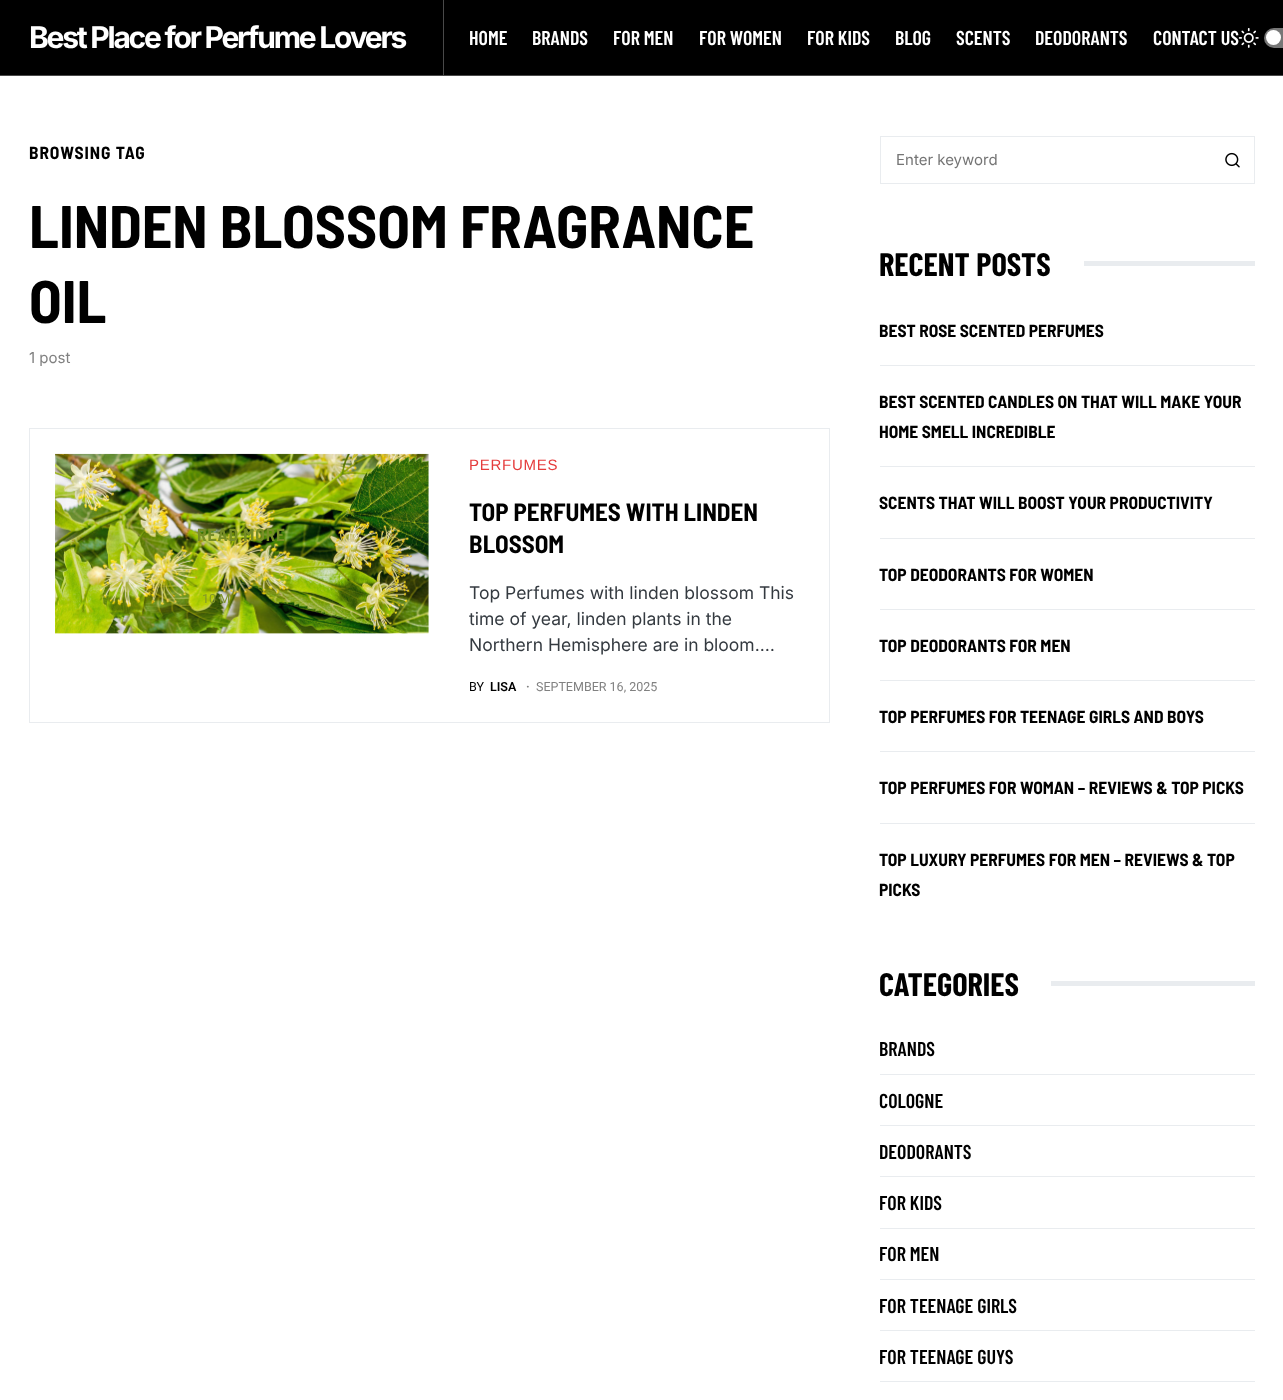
<!DOCTYPE html>
<meta charset="utf-8">
<style>body { margin: 0 } canvas { display: block }</style>
<canvas id="canvas" width="1283" height="1400"></canvas>
<script type="module">
  const canvas = document.getElementById("canvas");
  const g = canvas.getContext("2d");
  g.miterLimit = 4;
  g.fontKerning = "normal";
  function drawText(s, x, y, [font, color]) {
    g.font = font;
    g.fillStyle = color;
    g.fillText(s, x, y);
  }
  function fillBox(x, y, w, h, color) {
    g.fillStyle = color;
    g.fillRect(x, y, w, h);
  }
  function fillRounded(x, y, w, h, r, color) {
    g.fillStyle = color;
    g.beginPath();
    g.roundRect(x, y, w, h, r);
    g.fill();
  }
  async function drawPicture(src, x, y, w, h) {
    const img = new Image();
    img.src = src;
    await img.decode();
    g.drawImage(img, x, y, w, h);
  }

  const s1 = ["bold 30px Inter", "#FFFFFF"];
  const s2 = ["600 20px Barlow Condensed", "#FFFFFF"];
  const s3 = ["bold 17.5px Barlow Semi Condensed", "#000000"];
  const s4 = ["bold 60px Barlow Semi Condensed", "#000000"];
  const s5 = ["15px Inter", "#818181"];
  const s6 = ["bold 17.5px Barlow Semi Condensed", "#788E27"];
  const s7 = ["12.5px Roboto", "#82972C"];
  const s8 = ["15px Liberation Sans", "#E53C3C"];
  const s9 = ["bold 25px Barlow Semi Condensed", "#000000"];
  const s10 = ["17.5px Inter", "#343A40"];
  const s11 = ["12.5px Roboto", "#000000"];
  const s12 = ["600 12.5px Roboto", "#000000"];
  const s13 = ["600 12.5px Roboto", "#818181"];
  const s14 = ["12.5px Roboto", "#818181"];
  const s15 = ["15px Inter", "#757575"];
  const s16 = ["bold 32.5px Barlow Condensed", "#000000"];
  const s17 = ["600 20px Barlow Condensed", "#000000"];

  fillBox(0, 0, 1283, 1400, "#FFFFFF");
  fillBox(0, 0, 1283, 75, "#000000");
  fillBox(0, 75, 1283, 1, "#494949");
  g.letterSpacing = "-2.25px";
  drawText("Best Place for Perfume Lovers", 29, 48, s1);
  fillBox(443, 0, 1, 75, "#494949");
  g.letterSpacing = "0px";
  drawText("HOME", 469, 45, s2);
  drawText("BRANDS", 532, 45, s2);
  drawText("FOR MEN", 613, 45, s2);
  drawText("FOR WOMEN", 699, 45, s2);
  drawText("FOR KIDS", 807, 45, s2);
  drawText("BLOG", 895, 45, s2);
  drawText("SCENTS", 956, 45, s2);
  drawText("DEODORANTS", 1035, 45, s2);
  drawText("CONTACT US", 1153, 45, s2);
  await drawPicture("pic1.png", 1238, 28, 21, 20);
  fillRounded(1264, 28, 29, 20, 10, "#777777");
  g.fillStyle = "#FFFFFF";
  g.beginPath();
  g.arc(1273.5, 37.5, 7.5, 0, Math.PI * 2);
  g.fill();
  g.letterSpacing = "0.9px";
  drawText("BROWSING TAG", 29, 159, s3);
  g.letterSpacing = "0px";
  drawText("LINDEN BLOSSOM FRAGRANCE", 29, 248, s4);
  drawText("OIL", 29, 323, s4);
  drawText("1 post", 29, 363, s5);
  g.strokeStyle = "#E9ECEF";
  g.strokeRect(29.5, 428.5, 800, 294);
  await drawPicture("pic2.png", 55, 453, 374, 181);
  g.letterSpacing = "0.9px";
  drawText("READ MORE", 197, 541, s6);
  g.letterSpacing = "0px";
  drawText("10 M", 202, 603, s7);
  g.letterSpacing = "0.75px";
  drawText("PERFUMES", 469, 470, s8);
  g.letterSpacing = "0px";
  drawText("TOP PERFUMES WITH LINDEN", 469, 521, s9);
  drawText("BLOSSOM", 469, 553, s9);
  drawText("Top Perfumes with linden blossom This", 469, 599, s10);
  drawText("time of year, linden plants in the", 469, 625, s10);
  drawText("Northern Hemisphere are in bloom.…", 469, 651, s10);
  drawText("BY", 469, 691, s11);
  drawText("LISA", 490, 691, s12);
  drawText("·", 526, 691, s13);
  drawText("SEPTEMBER 16, 2025", 536, 691, s14);
  g.strokeRect(880.5, 136.5, 374, 47);
  drawText("Enter keyword", 896, 165, s15);
  await drawPicture("pic3.png", 1225, 152, 15, 16);
  drawText("RECENT POSTS", 879, 276, s16);
  fillBox(1084, 261, 171, 5, "#E9ECEF");
  fillBox(880, 365, 375, 1, "#E9ECEF");
  drawText("BEST ROSE SCENTED PERFUMES", 879, 337, s3);
  fillBox(880, 466, 375, 1, "#E9ECEF");
  drawText("BEST SCENTED CANDLES ON THAT WILL MAKE YOUR", 879, 408, s3);
  drawText("HOME SMELL INCREDIBLE", 879, 438, s3);
  fillBox(880, 538, 375, 1, "#E9ECEF");
  drawText("SCENTS THAT WILL BOOST YOUR PRODUCTIVITY", 879, 509, s3);
  fillBox(880, 609, 375, 1, "#E9ECEF");
  drawText("TOP DEODORANTS FOR WOMEN", 879, 581, s3);
  fillBox(880, 680, 375, 1, "#E9ECEF");
  drawText("TOP DEODORANTS FOR MEN", 879, 652, s3);
  fillBox(880, 751, 375, 1, "#E9ECEF");
  drawText("TOP PERFUMES FOR TEENAGE GIRLS AND BOYS", 879, 723, s3);
  fillBox(880, 823, 375, 1, "#E9ECEF");
  drawText("TOP PERFUMES FOR WOMAN – REVIEWS & TOP PICKS", 879, 794, s3);
  drawText("TOP LUXURY PERFUMES FOR MEN – REVIEWS & TOP", 879, 866, s3);
  drawText("PICKS", 879, 896, s3);
  drawText("CATEGORIES", 879, 996, s16);
  fillBox(1051, 981, 204, 5, "#E9ECEF");
  fillBox(880, 1074, 375, 1, "#E9ECEF");
  drawText("BRANDS", 879, 1056, s17);
  fillBox(880, 1125, 375, 1, "#E9ECEF");
  drawText("COLOGNE", 879, 1108, s17);
  fillBox(880, 1176, 375, 1, "#E9ECEF");
  drawText("DEODORANTS", 879, 1159, s17);
  fillBox(880, 1228, 375, 1, "#E9ECEF");
  drawText("FOR KIDS", 879, 1210, s17);
  fillBox(880, 1279, 375, 1, "#E9ECEF");
  drawText("FOR MEN", 879, 1261, s17);
  fillBox(880, 1330, 375, 1, "#E9ECEF");
  drawText("FOR TEENAGE GIRLS", 879, 1313, s17);
  fillBox(880, 1381, 375, 1, "#E9ECEF");
  drawText("FOR TEENAGE GUYS", 879, 1364, s17);
</script>
